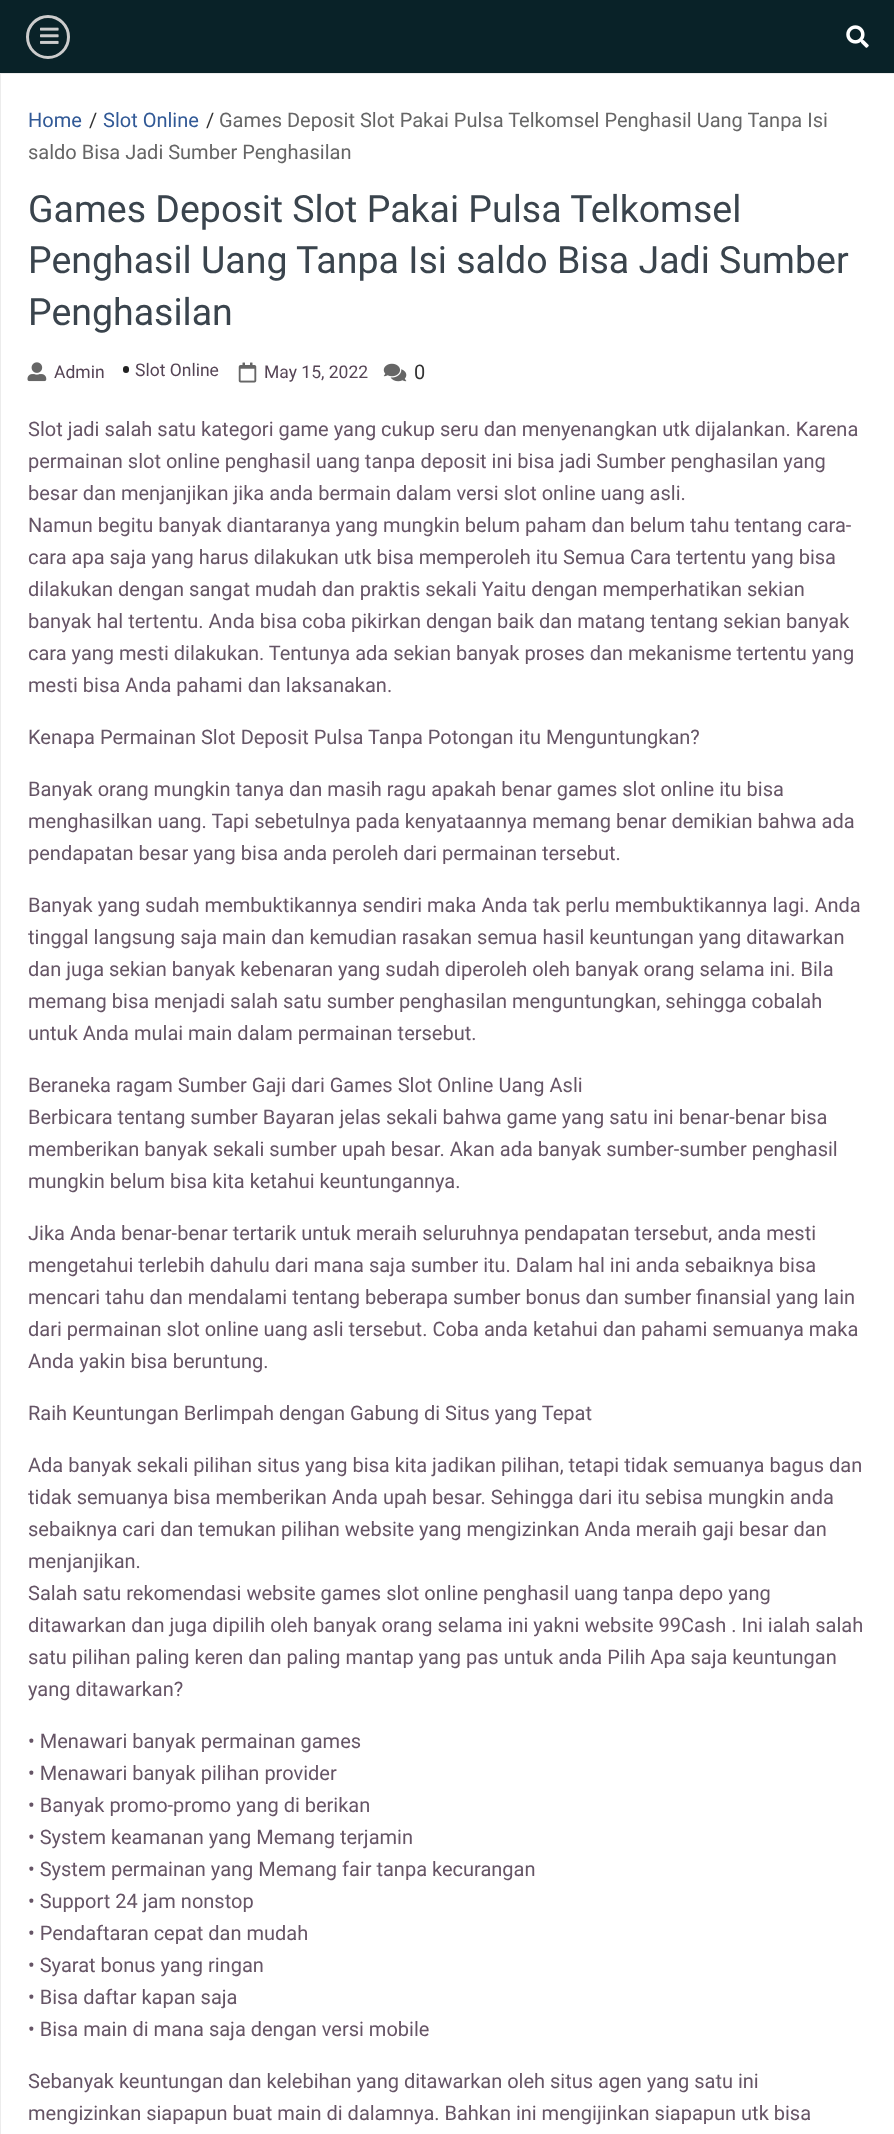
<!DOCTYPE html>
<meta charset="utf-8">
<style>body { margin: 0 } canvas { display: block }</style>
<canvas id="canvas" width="894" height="2134"></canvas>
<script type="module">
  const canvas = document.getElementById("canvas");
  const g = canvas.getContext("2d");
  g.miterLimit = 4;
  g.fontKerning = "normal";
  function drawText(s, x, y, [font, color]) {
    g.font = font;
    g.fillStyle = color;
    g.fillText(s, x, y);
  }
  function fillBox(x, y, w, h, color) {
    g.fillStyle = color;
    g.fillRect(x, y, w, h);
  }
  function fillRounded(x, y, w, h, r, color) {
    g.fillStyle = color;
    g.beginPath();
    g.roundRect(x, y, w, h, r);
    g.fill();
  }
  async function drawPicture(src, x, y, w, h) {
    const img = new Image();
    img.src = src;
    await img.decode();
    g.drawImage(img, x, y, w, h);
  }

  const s1 = ["20px Roboto", "#315996"];
  const s2 = ["20px Roboto", "#333333"];
  const s3 = ["20px Roboto", "#666666"];
  const s4 = ["37.5px Roboto", "#3A444D"];
  const s5 = ["17.5px Roboto", "#554455"];
  const s6 = ["20px Roboto", "#665566"];

  fillBox(0, 0, 894, 2134, "#FFFFFF");
  fillBox(0, 0, 894, 73, "#092228");
  g.beginPath();
  g.arc(48, 37, 20.5, 0, Math.PI * 2);
  g.strokeStyle = "#CCCCCC";
  g.lineWidth = 3;
  g.stroke();
  await drawPicture("pic1.png", 40, 27, 19, 17);
  await drawPicture("pic2.png", 846, 25, 23, 23);
  g.strokeStyle = "#ECECEC";
  g.lineWidth = 1;
  g.strokeRect(0.5, 73.5, 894, 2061);
  drawText("Home", 28, 127, s1);
  drawText("/", 89, 127, s2);
  drawText("Slot Online", 103, 127, s1);
  drawText("/", 206, 127, s2);
  drawText("Games Deposit Slot Pakai Pulsa Telkomsel Penghasil Uang Tanpa Isi", 219, 127, s3);
  drawText("saldo Bisa Jadi Sumber Penghasilan", 28, 159, s3);
  drawText("Games Deposit Slot Pakai Pulsa Telkomsel", 28, 222, s4);
  drawText("Penghasil Uang Tanpa Isi saldo Bisa Jadi Sumber", 28, 273, s4);
  drawText("Penghasilan", 28, 325, s4);
  await drawPicture("pic3.png", 27, 362, 20, 20);
  drawText("Admin", 54, 378, s5);
  fillRounded(123, 366, 6, 7, 3, "#222222");
  drawText("Slot Online", 135, 376, s5);
  await drawPicture("pic4.png", 238, 362, 19, 21);
  drawText("May 15, 2022", 264, 378, s5);
  await drawPicture("pic5.png", 383, 363, 24, 19);
  drawText("0", 414, 379, s2);
  drawText("Slot jadi salah satu kategori game yang cukup seru dan menyenangkan utk dijalankan. Karena", 28, 436, s6);
  drawText("permainan slot online penghasil uang tanpa deposit ini bisa jadi Sumber penghasilan yang", 28, 468, s6);
  drawText("besar dan menjanjikan jika anda bermain dalam versi slot online uang asli.", 28, 500, s6);
  drawText("Namun begitu banyak diantaranya yang mungkin belum paham dan belum tahu tentang cara-", 28, 532, s6);
  drawText("cara apa saja yang harus dilakukan utk bisa memperoleh itu Semua Cara tertentu yang bisa", 28, 564, s6);
  drawText("dilakukan dengan sangat mudah dan praktis sekali Yaitu dengan memperhatikan sekian", 28, 596, s6);
  drawText("banyak hal tertentu. Anda bisa coba pikirkan dengan baik dan matang tentang sekian banyak", 28, 628, s6);
  drawText("cara yang mesti dilakukan. Tentunya ada sekian banyak proses dan mekanisme tertentu yang", 28, 660, s6);
  drawText("mesti bisa Anda pahami dan laksanakan.", 28, 692, s6);
  drawText("Kenapa Permainan Slot Deposit Pulsa Tanpa Potongan itu Menguntungkan?", 28, 744, s6);
  drawText("Banyak orang mungkin tanya dan masih ragu apakah benar games slot online itu bisa", 28, 796, s6);
  drawText("menghasilkan uang. Tapi sebetulnya pada kenyataannya memang benar demikian bahwa ada", 28, 828, s6);
  drawText("pendapatan besar yang bisa anda peroleh dari permainan tersebut.", 28, 860, s6);
  drawText("Banyak yang sudah membuktikannya sendiri maka Anda tak perlu membuktikannya lagi. Anda", 28, 912, s6);
  drawText("tinggal langsung saja main dan kemudian rasakan semua hasil keuntungan yang ditawarkan", 28, 944, s6);
  drawText("dan juga sekian banyak kebenaran yang sudah diperoleh oleh banyak orang selama ini. Bila", 28, 976, s6);
  drawText("memang bisa menjadi salah satu sumber penghasilan menguntungkan, sehingga cobalah", 28, 1008, s6);
  drawText("untuk Anda mulai main dalam permainan tersebut.", 28, 1040, s6);
  drawText("Beraneka ragam Sumber Gaji dari Games Slot Online Uang Asli", 28, 1092, s6);
  drawText("Berbicara tentang sumber Bayaran jelas sekali bahwa game yang satu ini benar-benar bisa", 28, 1124, s6);
  drawText("memberikan banyak sekali sumber upah besar. Akan ada banyak sumber-sumber penghasil", 28, 1156, s6);
  drawText("mungkin belum bisa kita ketahui keuntungannya.", 28, 1188, s6);
  drawText("Jika Anda benar-benar tertarik untuk meraih seluruhnya pendapatan tersebut, anda mesti", 28, 1240, s6);
  drawText("mengetahui terlebih dahulu dari mana saja sumber itu. Dalam hal ini anda sebaiknya bisa", 28, 1272, s6);
  drawText("mencari tahu dan mendalami tentang beberapa sumber bonus dan sumber finansial yang lain", 28, 1304, s6);
  drawText("dari permainan slot online uang asli tersebut. Coba anda ketahui dan pahami semuanya maka", 28, 1336, s6);
  drawText("Anda yakin bisa beruntung.", 28, 1368, s6);
  drawText("Raih Keuntungan Berlimpah dengan Gabung di Situs yang Tepat", 28, 1420, s6);
  drawText("Ada banyak sekali pilihan situs yang bisa kita jadikan pilihan, tetapi tidak semuanya bagus dan", 28, 1472, s6);
  drawText("tidak semuanya bisa memberikan Anda upah besar. Sehingga dari itu sebisa mungkin anda", 28, 1504, s6);
  drawText("sebaiknya cari dan temukan pilihan website yang mengizinkan Anda meraih gaji besar dan", 28, 1536, s6);
  drawText("menjanjikan.", 28, 1568, s6);
  drawText("Salah satu rekomendasi website games slot online penghasil uang tanpa depo yang", 28, 1600, s6);
  drawText("ditawarkan dan juga dipilih oleh banyak orang selama ini yakni website 99Cash . Ini ialah salah", 28, 1632, s6);
  drawText("satu pilihan paling keren dan paling mantap yang pas untuk anda Pilih Apa saja keuntungan", 28, 1664, s6);
  drawText("yang ditawarkan?", 28, 1696, s6);
  drawText("• Menawari banyak permainan games", 28, 1748, s6);
  drawText("• Menawari banyak pilihan provider", 28, 1780, s6);
  drawText("• Banyak promo-promo yang di berikan", 28, 1812, s6);
  drawText("• System keamanan yang Memang terjamin", 28, 1844, s6);
  drawText("• System permainan yang Memang fair tanpa kecurangan", 28, 1876, s6);
  drawText("• Support 24 jam nonstop", 28, 1908, s6);
  drawText("• Pendaftaran cepat dan mudah", 28, 1940, s6);
  drawText("• Syarat bonus yang ringan", 28, 1972, s6);
  drawText("• Bisa daftar kapan saja", 28, 2004, s6);
  drawText("• Bisa main di mana saja dengan versi mobile", 28, 2036, s6);
  drawText("Sebanyak keuntungan dan kelebihan yang ditawarkan oleh situs agen yang satu ini", 28, 2088, s6);
  drawText("mengizinkan siapapun buat main di dalamnya. Bahkan ini mengijinkan siapapun utk bisa", 28, 2120, s6);
</script>
